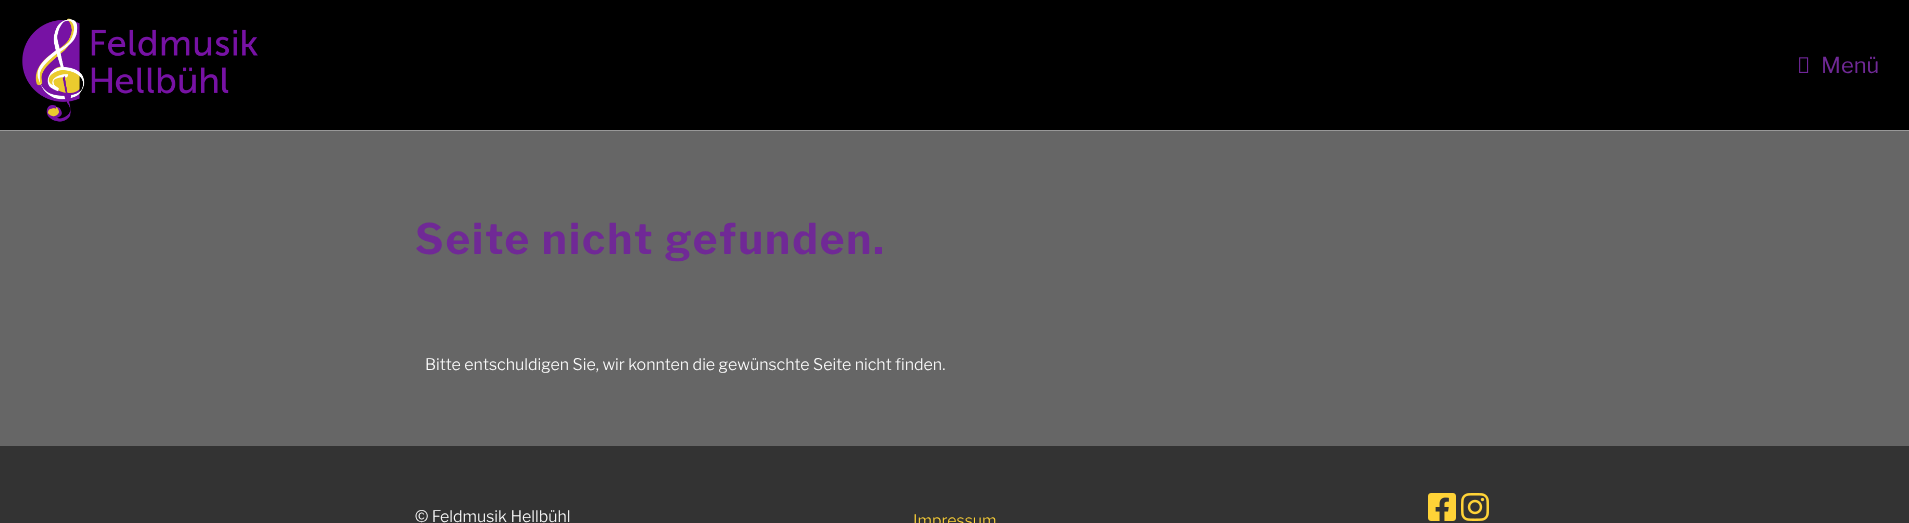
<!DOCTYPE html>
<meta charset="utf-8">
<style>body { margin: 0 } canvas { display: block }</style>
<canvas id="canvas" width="1909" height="523"></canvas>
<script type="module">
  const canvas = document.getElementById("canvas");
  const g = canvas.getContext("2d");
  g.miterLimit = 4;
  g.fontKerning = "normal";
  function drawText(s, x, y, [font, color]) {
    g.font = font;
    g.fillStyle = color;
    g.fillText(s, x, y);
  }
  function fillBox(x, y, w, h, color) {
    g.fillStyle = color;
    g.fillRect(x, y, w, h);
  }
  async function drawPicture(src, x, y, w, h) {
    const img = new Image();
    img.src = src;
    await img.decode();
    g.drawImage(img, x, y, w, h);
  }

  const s1 = ["22px Libre Franklin", "#702996"];
  const s2 = ["bold 42px Libre Franklin", "#702996"];
  const s3 = ["300 16px Libre Franklin", "#FFFFFF"];
  const s4 = ["300 16px Libre Franklin", "#FFD337"];

  fillBox(0, 0, 1909, 523, "#666666");
  fillBox(0, 0, 1909, 130, "#000000");
  fillBox(0, 130, 1909, 1, "#999999");
  await drawPicture("pic1.png", 22, 18, 236, 104);
  await drawPicture("pic2.png", 1799, 57, 10, 16);
  drawText("Menü", 1821, 73, s1);
  g.letterSpacing = "2px";
  drawText("Seite nicht gefunden.", 415, 254, s2);
  g.letterSpacing = "0px";
  drawText("Bitte entschuldigen Sie, wir konnten die gewünschte Seite nicht finden.", 425, 370, s3);
  fillBox(0, 446, 1909, 77, "#333333");
  drawText("© Feldmusik Hellbühl", 415, 522, s3);
  drawText("Impressum", 913, 526, s4);
  await drawPicture("pic3.png", 1428, 493, 28, 28);
  await drawPicture("pic4.png", 1461, 493, 28, 28);
</script>
